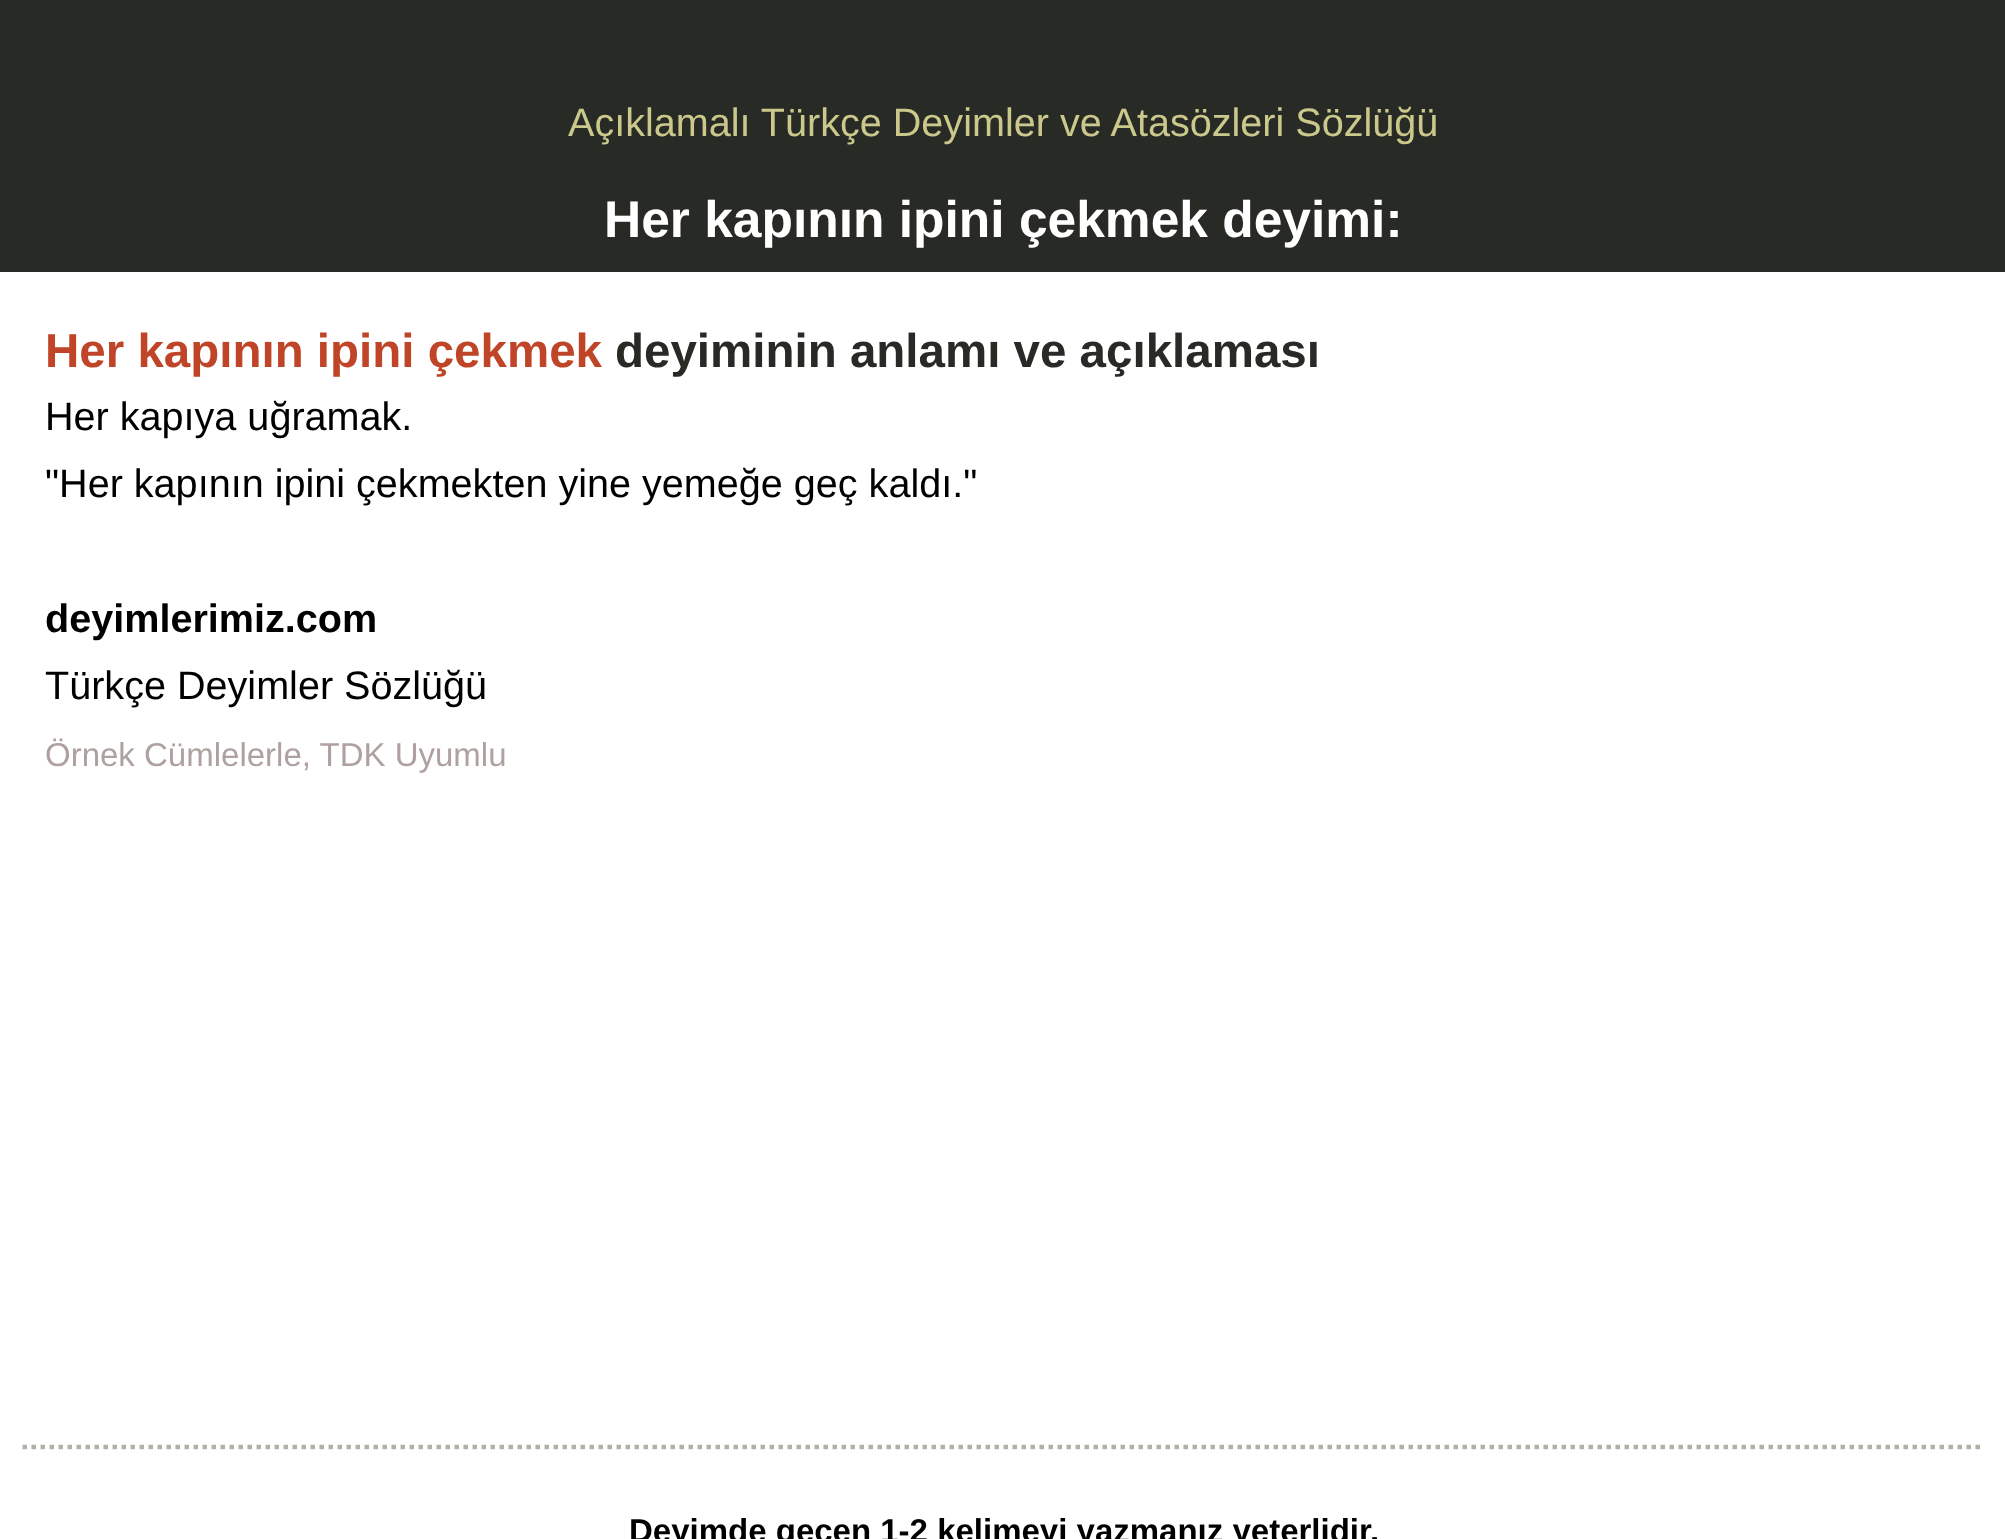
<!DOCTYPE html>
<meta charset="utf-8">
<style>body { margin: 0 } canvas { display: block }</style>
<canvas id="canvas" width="2005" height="1539"></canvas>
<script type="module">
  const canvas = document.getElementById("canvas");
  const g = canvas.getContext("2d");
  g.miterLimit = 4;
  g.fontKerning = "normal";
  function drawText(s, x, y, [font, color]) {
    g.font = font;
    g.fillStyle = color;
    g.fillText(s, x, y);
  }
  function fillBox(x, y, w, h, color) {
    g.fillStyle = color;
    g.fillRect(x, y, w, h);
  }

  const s1 = ["39.6px Liberation Sans", "#CBC88C"];
  const s2 = ["bold 51.5px Liberation Sans", "#FFFFFF"];
  const s3 = ["bold 47.5px Liberation Sans", "#C04528"];
  const s4 = ["bold 47.5px Liberation Sans", "#282A25"];
  const s5 = ["39.6px Liberation Sans", "#000000"];
  const s6 = ["bold 39.6px Liberation Sans", "#000000"];
  const s7 = ["33px Liberation Sans", "#AEA19F"];
  const s8 = ["bold 33px Liberation Sans", "#000000"];

  fillBox(0, 0, 2005, 1539, "#FFFFFF");
  fillBox(0, 0, 2005, 272, "#282A25");
  drawText("Açıklamalı Türkçe Deyimler ve Atasözleri Sözlüğü", 568, 136, s1);
  drawText("Her kapının ipini çekmek deyimi:", 604, 237, s2);
  g.beginPath();
  g.moveTo(22.5, 1447);
  g.lineTo(1984.5, 1447);
  g.strokeStyle = "#B1B1A5";
  g.lineWidth = 4.5;
  g.setLineDash([4.5, 4.5]);
  g.stroke();
  drawText("Her kapının ipini çekmek", 45, 367, s3);
  drawText("deyiminin anlamı ve açıklaması", 615, 367, s4);
  drawText("Her kapıya uğramak.", 45, 430, s5);
  drawText("\"Her kapının ipini çekmekten yine yemeğe geç kaldı.\"", 45, 497, s5);
  drawText("deyimlerimiz.com", 45, 632, s6);
  drawText("Türkçe Deyimler Sözlüğü", 45, 699, s5);
  drawText("Örnek Cümlelerle, TDK Uyumlu", 45, 766, s7);
  drawText("Deyimde geçen 1-2 kelimeyi yazmanız yeterlidir.", 629, 1542, s8);
</script>
